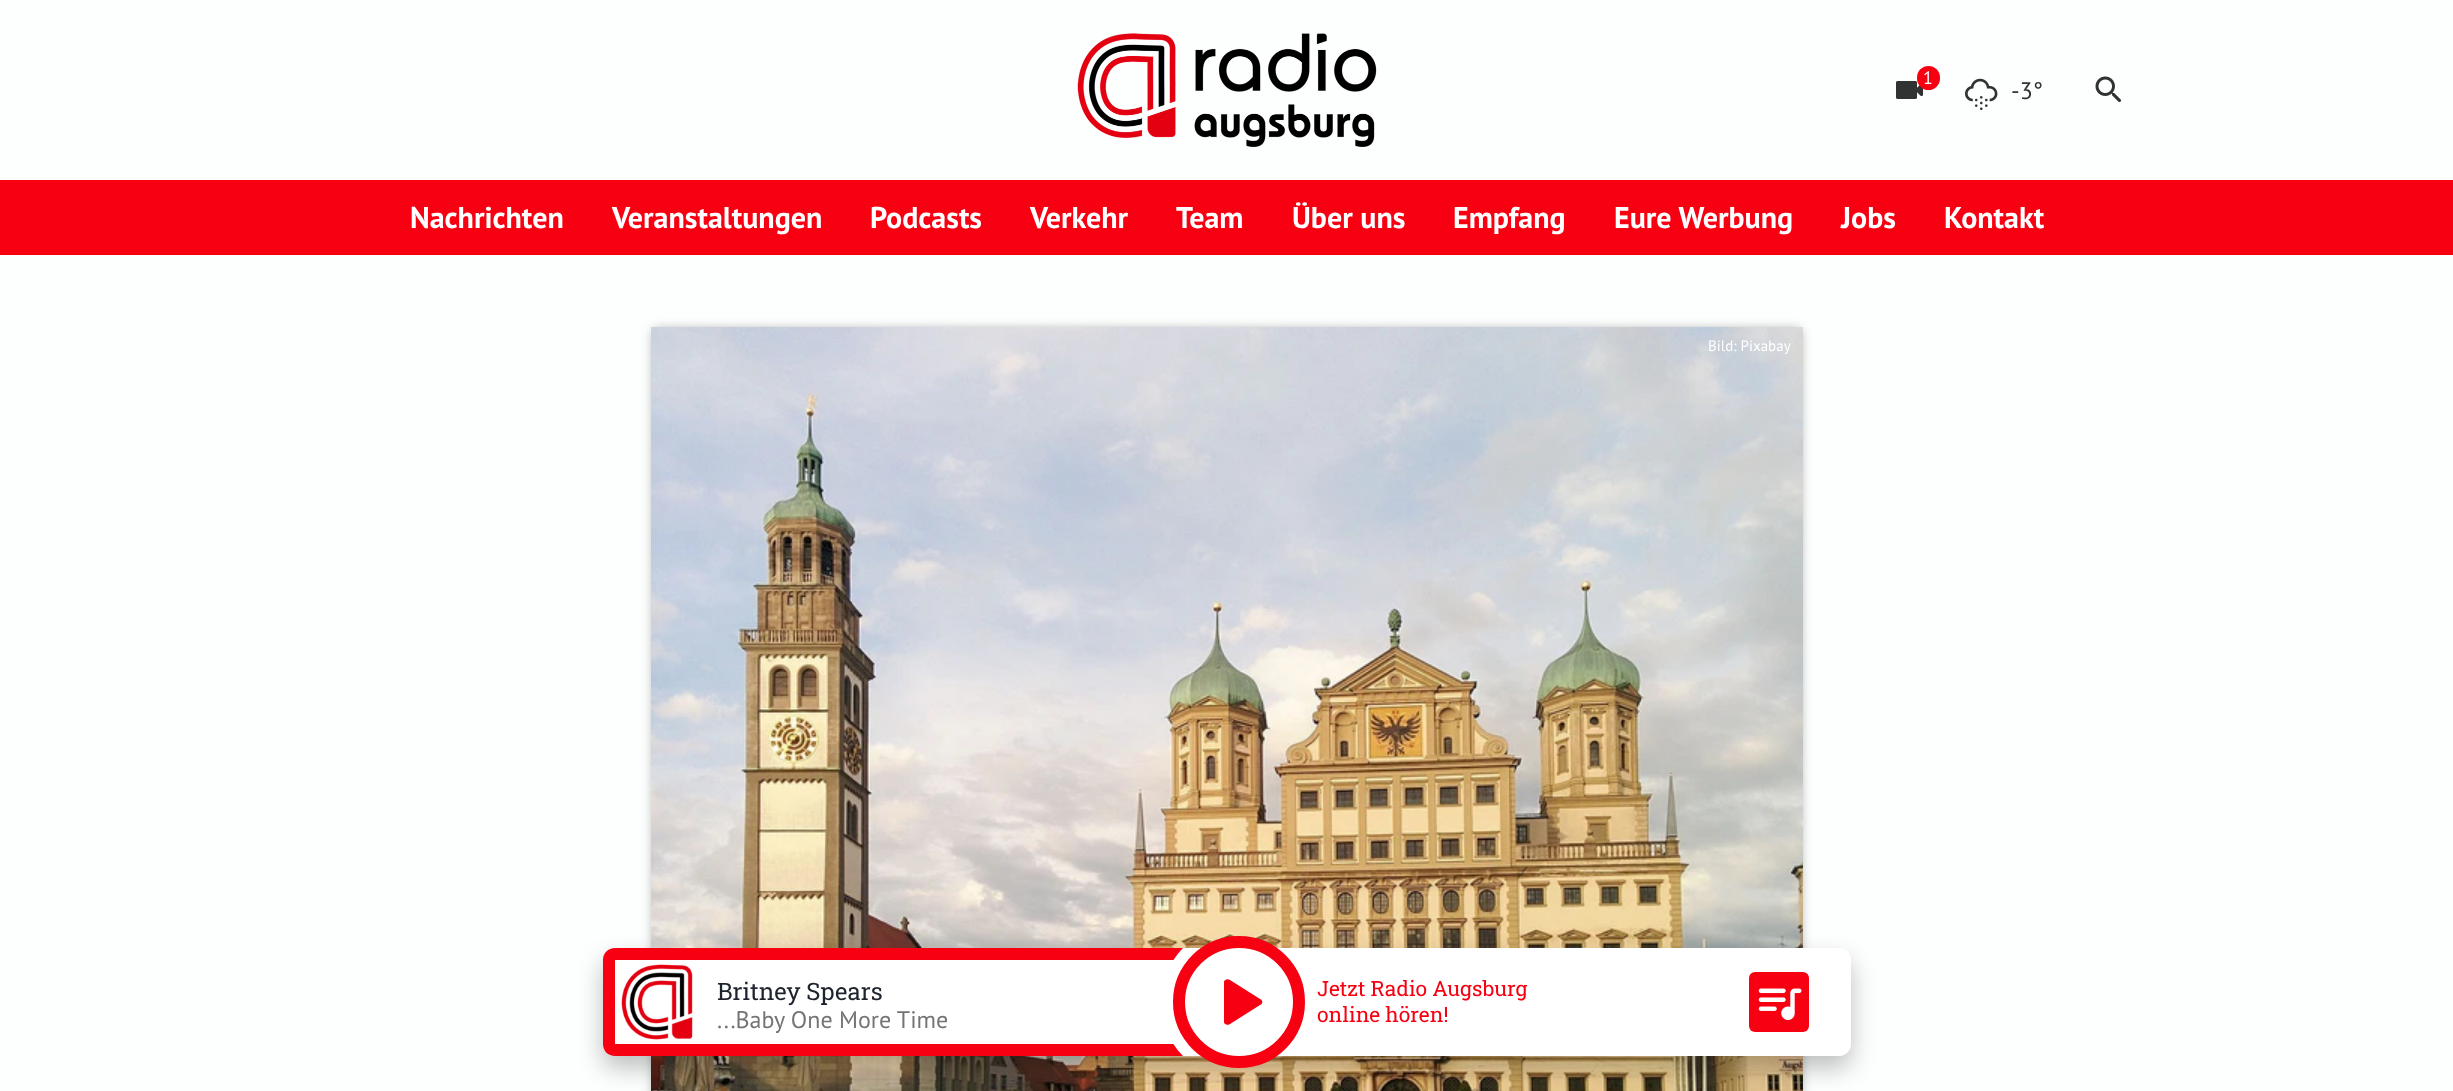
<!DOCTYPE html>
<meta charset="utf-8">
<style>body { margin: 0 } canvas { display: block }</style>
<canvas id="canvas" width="2453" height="1091"></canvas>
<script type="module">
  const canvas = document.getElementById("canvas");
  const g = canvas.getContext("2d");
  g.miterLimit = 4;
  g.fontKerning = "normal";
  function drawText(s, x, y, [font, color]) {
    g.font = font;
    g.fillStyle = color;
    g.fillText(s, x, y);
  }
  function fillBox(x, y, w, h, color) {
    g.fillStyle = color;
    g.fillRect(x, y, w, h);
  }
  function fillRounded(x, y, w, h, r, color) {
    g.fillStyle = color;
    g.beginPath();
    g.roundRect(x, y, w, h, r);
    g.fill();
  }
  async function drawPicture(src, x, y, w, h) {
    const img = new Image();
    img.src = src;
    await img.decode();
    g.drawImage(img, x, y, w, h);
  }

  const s1 = ["18px PT Sans", "#FFFFFF"];
  const s2 = ["24px PT Sans", "#313333"];
  const s3 = ["bold 30px PT Sans", "#FFFFFF"];
  const s4 = ["15px PT Sans", "#FFFFFF"];
  const s5 = ["24px Roboto Slab", "#1D242D"];
  const s6 = ["24px PT Sans", "#747474"];
  const s7 = ["21px Roboto Slab", "#F70011"];

  fillBox(0, 0, 2453, 1091, "#FDFFFF");
  await drawPicture("pic1.png", 1077, 33, 300, 114);
  await drawPicture("pic2.png", 1896, 81, 27, 18);
  fillRounded(1917, 66, 23, 24, 11.5, "#F70011");
  drawText("1", 1923, 84, s1);
  await drawPicture("pic3.png", 1965, 78, 33, 32);
  drawText("-3°", 2011, 99, s2);
  await drawPicture("pic4.png", 2095, 76, 27, 27);
  fillBox(0, 180, 2453, 75, "#F70011");
  drawText("Nachrichten", 410, 228, s3);
  drawText("Veranstaltungen", 612, 228, s3);
  drawText("Podcasts", 870, 228, s3);
  drawText("Verkehr", 1030, 228, s3);
  drawText("Team", 1176, 228, s3);
  drawText("Über uns", 1292, 228, s3);
  drawText("Empfang", 1453, 228, s3);
  drawText("Eure Werbung", 1614, 228, s3);
  drawText("Jobs", 1841, 228, s3);
  drawText("Kontakt", 1944, 228, s3);
  g.fillStyle = "rgba(0, 0, 0, 0.4)";
  g.filter = "blur(6px)";
  g.beginPath();
  g.rect(654, 330, 1146, 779);
  g.fill();
  g.filter = "none";
  await drawPicture("pic5.png", 651, 327, 1152, 764);
  drawText("Bild: Pixabay", 1708, 351, s4);
  g.fillStyle = "rgba(0, 0, 0, 0.25)";
  g.filter = "blur(12px)";
  g.beginPath();
  g.roundRect(603, 960, 1248, 108, 12);
  g.fill();
  g.filter = "none";
  fillRounded(603, 948, 1248, 108, 12, "#FFFFFF");
  await drawPicture("pic6.png", 621, 964, 72, 76);
  drawText("Britney Spears", 717, 1000, s5);
  drawText("...Baby One More Time", 717, 1028, s6);
  g.fillStyle = "#F70011";
  g.beginPath();
  g.moveTo(615, 948);
  g.bezierCurveTo(608, 948, 603, 953, 603, 960);
  g.lineTo(603, 1044);
  g.bezierCurveTo(603, 1051, 608, 1056, 615, 1056);
  g.lineTo(1215, 1056);
  g.bezierCurveTo(1222, 1056, 1227, 1051, 1227, 1044);
  g.lineTo(615, 1044);
  g.lineTo(615, 960);
  g.lineTo(1227, 960);
  g.bezierCurveTo(1227, 953, 1222, 948, 1215, 948);
  g.closePath();
  g.fill();
  g.fillStyle = "#FFFFFF";
  g.beginPath();
  g.moveTo(1183, 1056);
  g.bezierCurveTo(1154, 1026, 1154, 978, 1183, 948);
  g.lineTo(1201, 948);
  g.bezierCurveTo(1164, 974, 1164, 1030, 1201, 1056);
  g.closePath();
  g.moveTo(1295, 948);
  g.bezierCurveTo(1324, 978, 1324, 1026, 1295, 1056);
  g.lineTo(1277, 1056);
  g.bezierCurveTo(1314, 1030, 1314, 974, 1277, 948);
  g.closePath();
  g.fill("evenodd");
  g.save();
  g.beginPath();
  g.roundRect(603, 948, 1248, 108, 12);
  g.clip();
  g.beginPath();
  g.arc(1239, 1002, 66, 0, Math.PI * 2);
  g.fill();
  g.restore();
  g.fillStyle = "#F70011";
  g.beginPath();
  g.moveTo(1224, 982);
  g.lineTo(1224, 1022);
  g.bezierCurveTo(1224, 1024, 1227, 1026, 1230, 1024);
  g.lineTo(1260, 1005);
  g.bezierCurveTo(1263, 1004, 1263, 1000, 1260, 999);
  g.lineTo(1230, 980);
  g.bezierCurveTo(1227, 978, 1224, 980, 1224, 982);
  g.closePath();
  g.fill();
  g.beginPath();
  g.arc(1239, 1002, 60, 0, Math.PI * 2);
  g.strokeStyle = "#F70011";
  g.lineWidth = 12;
  g.stroke();
  drawText("Jetzt Radio Augsburg", 1317, 996, s7);
  drawText("online hören!", 1317, 1022, s7);
  fillRounded(1749, 972, 60, 60, 6, "#F70011");
  await drawPicture("pic7.png", 1758, 988, 44, 32);
</script>
